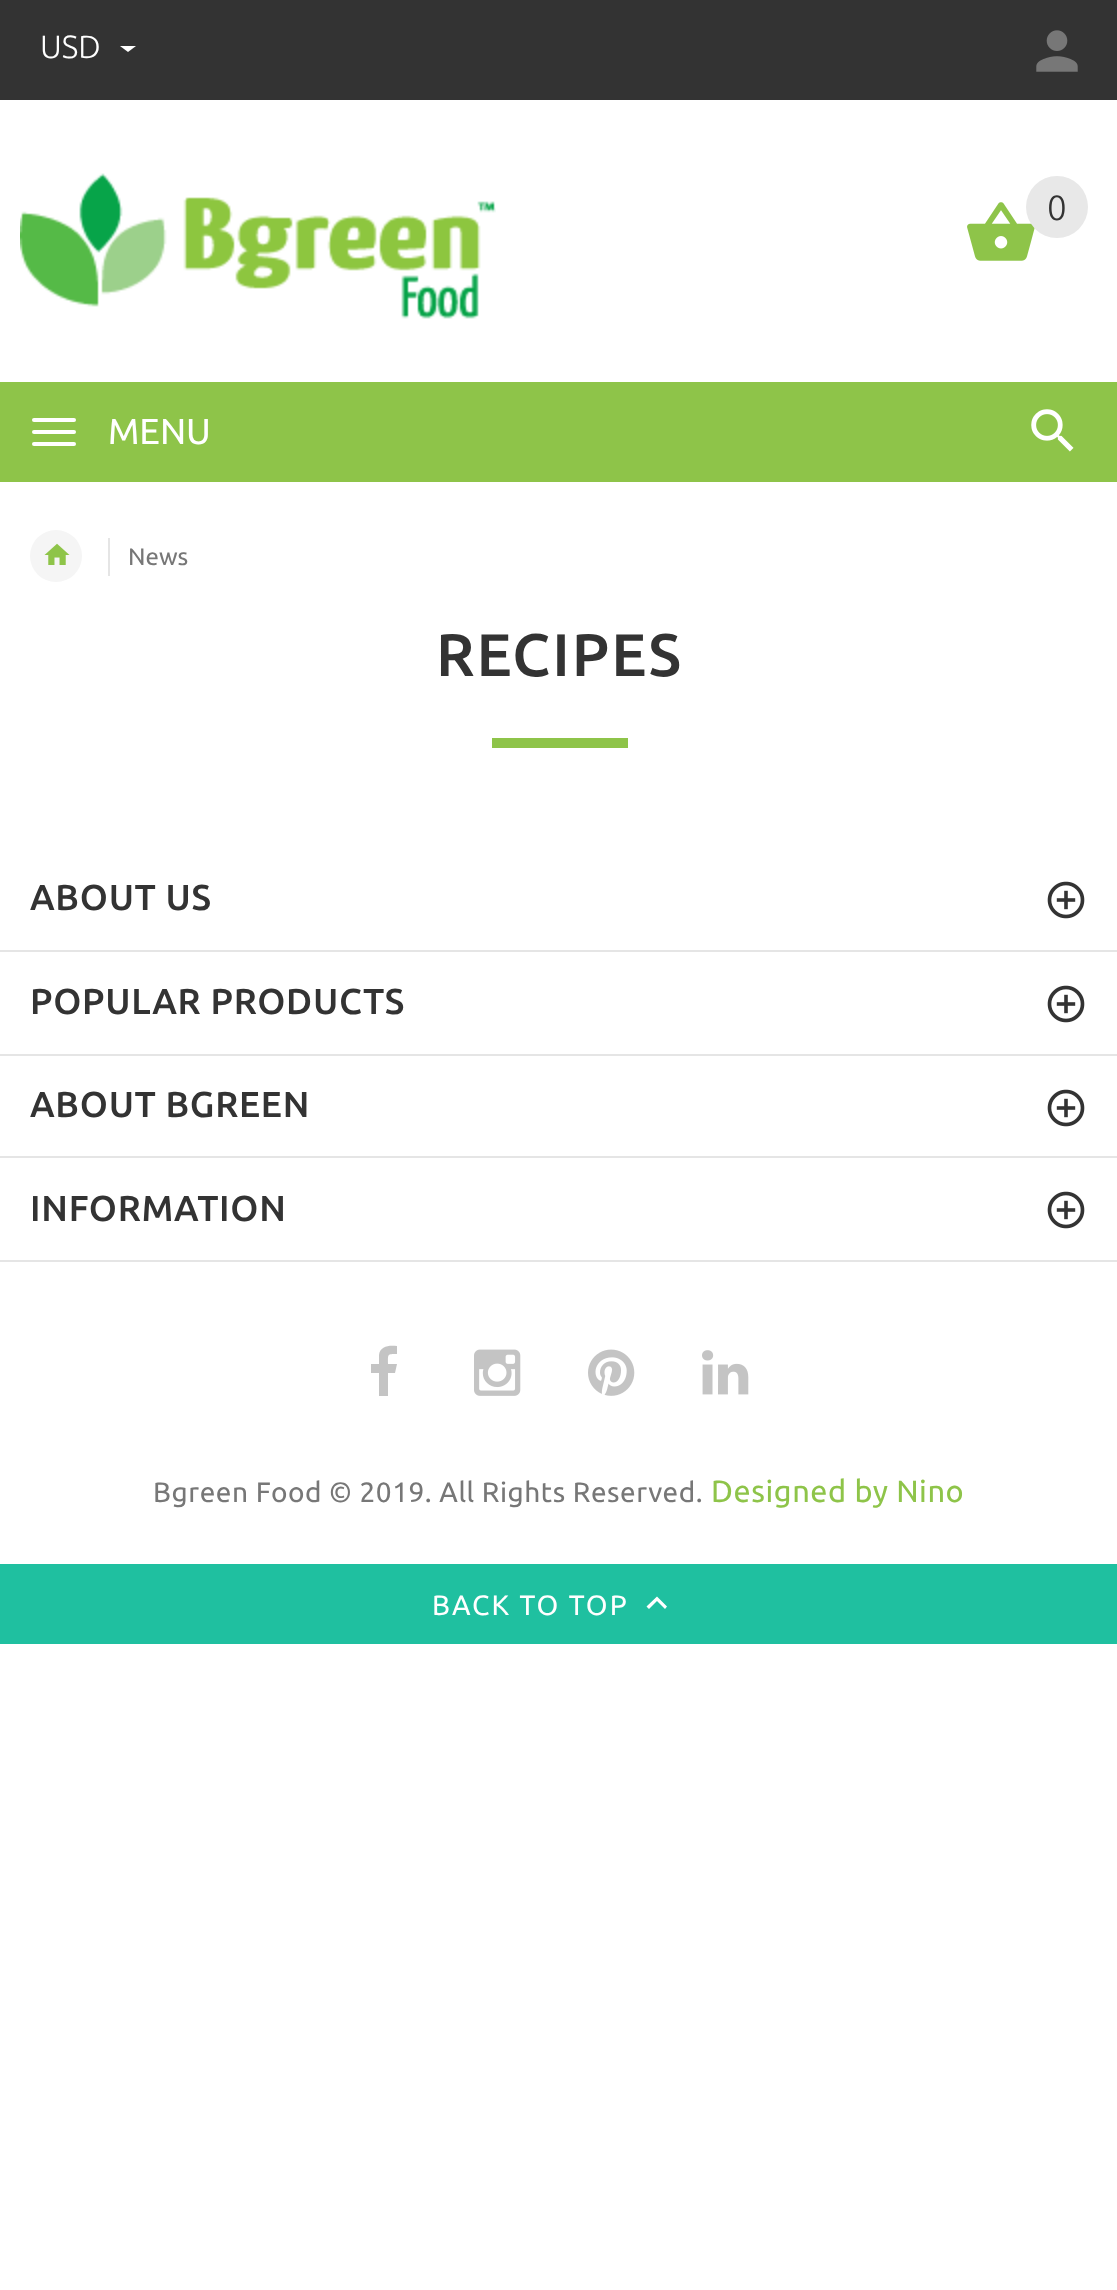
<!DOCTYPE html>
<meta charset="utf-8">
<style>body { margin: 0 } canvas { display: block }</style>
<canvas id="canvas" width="1117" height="2290"></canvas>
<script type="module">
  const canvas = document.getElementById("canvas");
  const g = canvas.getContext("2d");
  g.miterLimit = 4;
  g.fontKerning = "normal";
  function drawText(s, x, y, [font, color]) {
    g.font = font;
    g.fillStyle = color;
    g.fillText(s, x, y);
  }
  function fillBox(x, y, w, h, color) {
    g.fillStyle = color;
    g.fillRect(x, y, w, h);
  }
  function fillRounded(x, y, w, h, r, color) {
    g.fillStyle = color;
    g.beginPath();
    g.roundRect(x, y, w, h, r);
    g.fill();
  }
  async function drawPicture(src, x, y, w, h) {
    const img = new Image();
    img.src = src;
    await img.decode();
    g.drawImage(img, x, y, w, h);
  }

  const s1 = ["300 32px Ubuntu", "#FFFFFF"];
  const s2 = ["300 35px Ubuntu", "#333333"];
  const s3 = ["36px Ubuntu", "#FFFFFF"];
  const s4 = ["24px Ubuntu", "#777777"];
  const s5 = ["500 60px Ubuntu", "#333333"];
  const s6 = ["500 36px Ubuntu", "#333333"];
  const s7 = ["28px Ubuntu", "#777777"];
  const s8 = ["30.75px Ubuntu", "#8EC449"];
  const s9 = ["28px Ubuntu", "#FFFFFF"];

  fillBox(0, 0, 1117, 2290, "#FFFFFF");
  fillBox(0, 0, 1117, 100, "#333333");
  drawText("USD", 40, 58, s1);
  g.beginPath();
  g.moveTo(120, 46);
  g.lineTo(136, 46);
  g.lineTo(128, 52);
  g.closePath();
  g.fill();
  await drawPicture("pic1.png", 20, 173, 476, 146);
  await drawPicture("pic2.png", 1036, 30, 42, 42);
  await drawPicture("pic3.png", 967, 202, 68, 59);
  g.fillStyle = "#E8E8E8";
  g.beginPath();
  g.arc(1057, 207, 31, 0, Math.PI * 2);
  g.fill();
  drawText("0", 1047, 220, s2);
  fillBox(0, 382, 1117, 100, "#8EC449");
  await drawPicture("pic4.png", 1031, 409, 43, 43);
  fillRounded(32, 418, 44, 4, 2, "#FFFFFF");
  drawText("MENU", 108, 444, s3);
  fillRounded(32, 430, 44, 4, 2, "#FFFFFF");
  fillRounded(32, 442, 44, 4, 2, "#FFFFFF");
  g.fillStyle = "#F5F5F5";
  g.beginPath();
  g.arc(56, 556, 26, 0, Math.PI * 2);
  g.fill();
  await drawPicture("pic5.png", 44, 543, 26, 22);
  fillBox(108, 538, 2, 38, "#E5E5E5");
  drawText("News", 128, 565, s4);
  g.letterSpacing = "2px";
  drawText("RECIPES", 436, 676, s5);
  fillBox(492, 738, 136, 10, "#8EC449");
  fillBox(0, 950, 1117, 2, "#E5E5E5");
  g.letterSpacing = "0.75px";
  drawText("ABOUT US", 30, 910, s6);
  await drawPicture("pic6.png", 1047, 881, 38, 38);
  fillBox(0, 1054, 1117, 2, "#E5E5E5");
  drawText("POPULAR PRODUCTS", 30, 1014, s6);
  await drawPicture("pic6.png", 1047, 985, 38, 38);
  fillBox(0, 1156, 1117, 2, "#E5E5E5");
  drawText("ABOUT BGREEN", 30, 1117, s6);
  await drawPicture("pic6.png", 1047, 1089, 38, 38);
  fillBox(0, 1260, 1117, 2, "#E5E5E5");
  drawText("INFORMATION", 30, 1221, s6);
  await drawPicture("pic6.png", 1047, 1191, 38, 38);
  g.fillStyle = "#C4C4C4";
  g.beginPath();
  g.moveTo(397, 1346);
  g.lineTo(397, 1354);
  g.bezierCurveTo(387, 1354, 388, 1354, 388, 1364);
  g.lineTo(397, 1364);
  g.lineTo(395, 1373);
  g.lineTo(388, 1373);
  g.lineTo(388, 1396);
  g.lineTo(379, 1396);
  g.lineTo(379, 1373);
  g.lineTo(371, 1373);
  g.lineTo(371, 1364);
  g.lineTo(379, 1364);
  g.lineTo(379, 1355);
  g.bezierCurveTo(380, 1346, 389, 1345, 397, 1346);
  g.closePath();
  g.fill();
  await drawPicture("pic7.png", 474, 1349, 47, 47);
  await drawPicture("pic8.png", 588, 1349, 47, 47);
  await drawPicture("pic9.png", 702, 1350, 47, 45);
  g.letterSpacing = "0.55px";
  drawText("Bgreen Food © 2019. All Rights Reserved.", 153, 1502, s7);
  drawText("Designed by Nino", 711, 1502, s8);
  fillBox(0, 1564, 1117, 80, "#1FC0A0");
  g.letterSpacing = "2px";
  drawText("BACK TO TOP", 432, 1615, s9);
  g.beginPath();
  g.moveTo(657, 1596.5);
  g.lineTo(667, 1606.5);
  g.lineTo(665, 1609);
  g.lineTo(657, 1601);
  g.lineTo(649, 1609);
  g.lineTo(646.5, 1606.5);
  g.closePath();
  g.fill();
</script>
